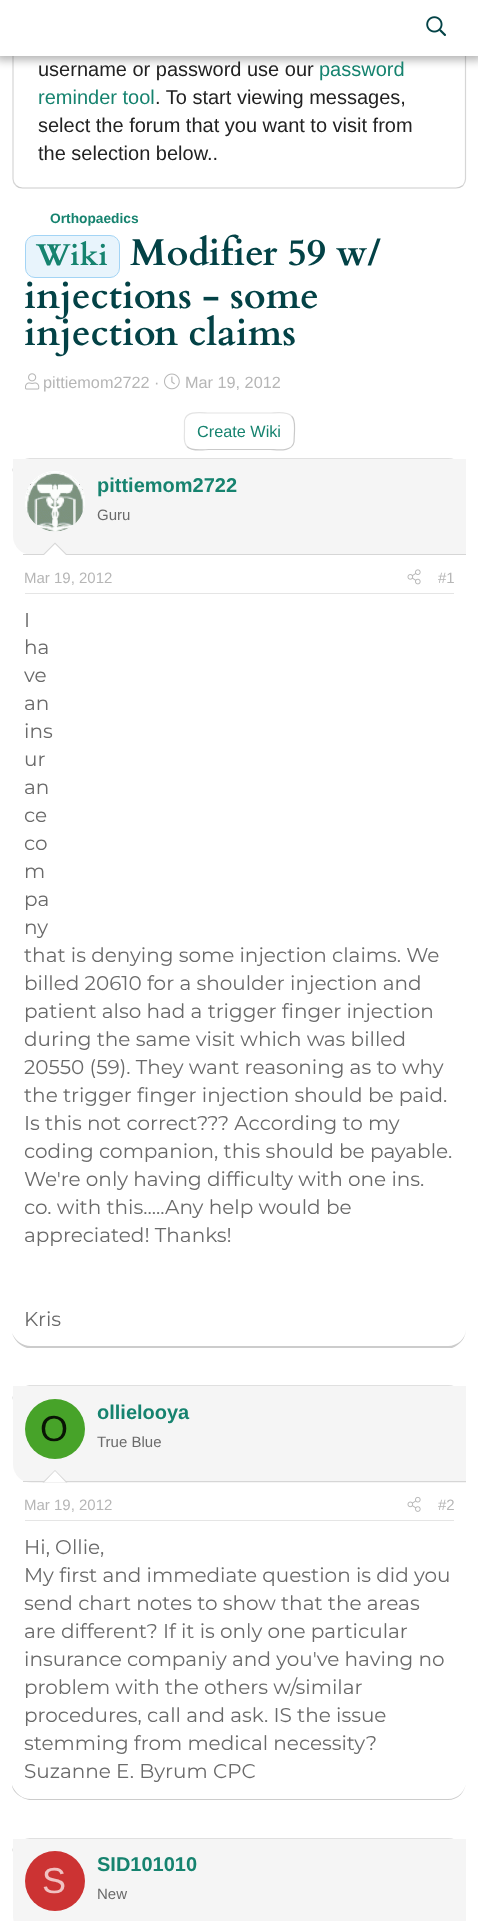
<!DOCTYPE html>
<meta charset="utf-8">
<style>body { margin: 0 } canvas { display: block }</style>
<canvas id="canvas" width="478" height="1921"></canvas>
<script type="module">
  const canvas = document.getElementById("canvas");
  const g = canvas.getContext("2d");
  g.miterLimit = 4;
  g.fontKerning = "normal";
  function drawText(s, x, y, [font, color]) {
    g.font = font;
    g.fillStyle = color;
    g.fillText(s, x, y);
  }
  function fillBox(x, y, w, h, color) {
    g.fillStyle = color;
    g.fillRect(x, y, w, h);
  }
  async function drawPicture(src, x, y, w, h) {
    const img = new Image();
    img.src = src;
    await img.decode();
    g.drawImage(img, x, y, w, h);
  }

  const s1 = ["20px Liberation Sans", "#222222"];
  const s2 = ["20px Liberation Sans", "#16836F"];
  const s3 = ["bold 13.75px Liberation Sans", "#16836F"];
  const s4 = ["bold 30px Cardo", "#16836F"];
  const s5 = ["bold 37.5px Cardo", "#034246"];
  const s6 = ["16.25px Liberation Sans", "#B6B6B6"];
  const s7 = ["16.25px Liberation Sans", "#16836F"];
  const s8 = ["bold 20px Liberation Sans", "#16836F"];
  const s9 = ["15px Liberation Sans", "#6A6A6A"];
  const s10 = ["15px Liberation Sans", "#B6B6B6"];
  const s11 = ["20px Montserrat", "#6A6A6A"];
  const s12 = ["36px Liberation Sans", "#091405"];
  const s13 = ["36px Liberation Sans", "#F0C2C2"];

  fillBox(0, 0, 478, 1921, "#FFFFFF");
  g.beginPath();
  g.moveTo(463, -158);
  g.bezierCurveTo(464.5, -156, 465.5, -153.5, 465.5, -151);
  g.lineTo(465.5, 179);
  g.bezierCurveTo(465.5, 181, 464.5, 183.5, 463, 185.5);
  g.strokeStyle = "#D6D6D6";
  g.lineWidth = 1.2;
  g.stroke();
  g.beginPath();
  g.moveTo(463, 185.5);
  g.bezierCurveTo(461, 187, 458.5, 188, 456, 188);
  g.lineTo(22.5, 188);
  g.bezierCurveTo(20, 188, 17.5, 187, 16, 185.5);
  g.strokeStyle = "#CCCCCC";
  g.stroke();
  g.beginPath();
  g.moveTo(16, 185.5);
  g.bezierCurveTo(14, 183.5, 13, 181, 13, 179);
  g.lineTo(13, -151);
  g.bezierCurveTo(13, -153.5, 14, -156, 16, -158);
  g.strokeStyle = "#D6D6D6";
  g.stroke();
  g.fillStyle = "rgba(0, 0, 0, 0.3)";
  g.filter = "blur(5px)";
  g.beginPath();
  g.rect(-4, -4, 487, 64);
  g.fill();
  g.filter = "none";
  fillBox(0, 0, 478, 56, "#FFFFFF");
  await drawPicture("pic1.png", 426, 16, 20, 20);
  drawText("username or password use our", 38, 76, s1);
  drawText("password", 319, 76, s2);
  drawText("reminder tool", 38, 104, s2);
  drawText(". To start viewing messages,", 155, 104, s1);
  drawText("select the forum that you want to visit from", 38, 132, s1);
  drawText("the selection below..", 38, 160, s1);
  drawText("Orthopaedics", 50, 223, s3);
  g.fillStyle = "#E8F4FC";
  g.beginPath();
  g.roundRect(25.5, 235.5, 94, 42, 9.5);
  g.fill();
  g.strokeStyle = "#A3D4F5";
  g.lineWidth = 1;
  g.stroke();
  drawText("Wiki", 36, 265, s4);
  drawText("Modifier 59 w/", 130, 265, s5);
  drawText("injections - some", 24, 308, s5);
  drawText("injection claims", 24, 345, s5);
  await drawPicture("pic2.png", 25, 373, 15, 17);
  drawText("pittiemom2722 ·", 43, 388, s6);
  await drawPicture("pic3.png", 164, 373, 16, 17);
  drawText("Mar 19, 2012", 185, 388, s6);
  g.beginPath();
  g.moveTo(291.5, 416);
  g.bezierCurveTo(295.5, 420, 294.5, 426, 294.5, 431);
  g.lineTo(294, 442);
  g.bezierCurveTo(292, 452.5, 276.5, 449.5, 270, 449.5);
  g.lineTo(209, 449.5);
  g.bezierCurveTo(204, 449.5, 192, 452, 187, 446.5);
  g.strokeStyle = "#C9C9C9";
  g.lineWidth = 1.2;
  g.stroke();
  g.beginPath();
  g.moveTo(187, 446.5);
  g.bezierCurveTo(183, 442.5, 184.5, 436.5, 184.5, 431);
  g.lineTo(184.5, 420.5);
  g.bezierCurveTo(186.5, 410, 202, 413, 209, 413);
  g.lineTo(270, 413);
  g.bezierCurveTo(274.5, 413, 286.5, 410.5, 291.5, 416);
  g.strokeStyle = "#E3E3E3";
  g.stroke();
  drawText("Create Wiki", 197, 437, s7);
  g.fillStyle = "#E0E0E0";
  g.beginPath();
  g.moveTo(31, 458);
  g.lineTo(448, 458);
  g.bezierCurveTo(458, 458, 466, 466, 466, 476);
  g.bezierCurveTo(466, 467, 458, 459, 448, 459);
  g.lineTo(31, 459);
  g.bezierCurveTo(22, 459, 15, 465, 12, 472);
  g.bezierCurveTo(12, 464, 24, 458, 31, 458);
  g.closePath();
  g.fill();
  g.fillStyle = "#CCCCCC";
  g.beginPath();
  g.moveTo(452, 1348);
  g.bezierCurveTo(460, 1345, 466, 1338, 466, 1329);
  g.bezierCurveTo(466, 1338, 458, 1346, 448, 1346);
  g.lineTo(31, 1346);
  g.bezierCurveTo(22, 1346, 15, 1340, 12, 1333);
  g.bezierCurveTo(14, 1340, 20, 1346, 27, 1348);
  g.closePath();
  g.fill();
  g.fillStyle = "#F5F5F5";
  g.beginPath();
  g.roundRect(13, 459, 453, 96, [0, 0, 0, 19]);
  g.fill();
  fillBox(23, 554, 443, 1, "#D6D6D6");
  g.fillStyle = "#FFFFFF";
  g.beginPath();
  g.arc(55, 501, 30, 0, Math.PI * 2);
  g.fill();
  await drawPicture("pic4.png", 25, 472, 60, 60);
  drawText("pittiemom2722", 97, 492, s8);
  drawText("Guru", 97, 520, s9);
  g.fillStyle = "#D6D6D6";
  g.beginPath();
  g.moveTo(67.5, 555);
  g.lineTo(42.5, 555);
  g.lineTo(55, 542.5);
  g.closePath();
  g.fill();
  g.fillStyle = "#FFFFFF";
  g.beginPath();
  g.moveTo(66, 555);
  g.lineTo(44, 555);
  g.lineTo(55, 544);
  g.closePath();
  g.fill();
  fillBox(25, 593, 429, 1, "#E5E5E5");
  drawText("Mar 19, 2012", 24, 583, s10);
  await drawPicture("pic5.png", 407, 569, 14, 16);
  drawText("#1", 438, 583, s10);
  drawText("I", 24, 627, s11);
  drawText("ha", 24, 654, s11);
  drawText("ve", 24, 682, s11);
  drawText("an", 24, 710, s11);
  drawText("ins", 24, 738, s11);
  drawText("ur", 24, 766, s11);
  drawText("an", 24, 794, s11);
  drawText("ce", 24, 822, s11);
  drawText("co", 24, 850, s11);
  drawText("m", 24, 878, s11);
  drawText("pa", 24, 906, s11);
  drawText("ny", 24, 934, s11);
  drawText("that is denying some injection claims. We", 24, 962, s11);
  drawText("billed 20610 for a shoulder injection and", 24, 990, s11);
  drawText("patient also had a trigger finger injection", 24, 1018, s11);
  drawText("during the same visit which was billed", 24, 1046, s11);
  drawText("20550 (59). They want reasoning as to why", 24, 1074, s11);
  drawText("the trigger finger injection should be paid.", 24, 1102, s11);
  drawText("Is this not correct??? According to my", 24, 1130, s11);
  drawText("coding companion, this should be payable.", 24, 1158, s11);
  drawText("We're only having difficulty with one ins.", 24, 1186, s11);
  drawText("co. with this.....Any help would be", 24, 1214, s11);
  drawText("appreciated! Thanks!", 24, 1242, s11);
  drawText("Kris", 24, 1326, s11);
  g.fillStyle = "#E0E0E0";
  g.beginPath();
  g.moveTo(31, 1385);
  g.bezierCurveTo(24, 1385, 12, 1392, 12, 1400);
  g.bezierCurveTo(15, 1392, 22, 1386, 31, 1386);
  g.lineTo(448, 1386);
  g.bezierCurveTo(458, 1386, 466, 1394, 466, 1404);
  g.bezierCurveTo(466, 1393, 458, 1385, 448, 1385);
  g.closePath();
  g.fill();
  g.fillStyle = "#CCCCCC";
  g.beginPath();
  g.moveTo(448, 1800);
  g.bezierCurveTo(458, 1800, 466, 1792, 466, 1781);
  g.bezierCurveTo(466, 1791, 458, 1799, 448, 1799);
  g.lineTo(31, 1799);
  g.bezierCurveTo(22, 1799, 15, 1793, 12, 1785);
  g.bezierCurveTo(12, 1793, 24, 1800, 31, 1800);
  g.closePath();
  g.fill();
  g.fillStyle = "#F5F5F5";
  g.beginPath();
  g.roundRect(13, 1386, 453, 97, [0, 0, 0, 19]);
  g.fill();
  fillBox(23, 1481, 443, 1, "#D6D6D6");
  g.fillStyle = "#47A329";
  g.beginPath();
  g.arc(55, 1429, 30, 0, Math.PI * 2);
  g.fill();
  drawText("O", 40, 1441, s12);
  drawText("ollielooya", 97, 1419, s8);
  drawText("True Blue", 97, 1447, s9);
  g.fillStyle = "#D6D6D6";
  g.beginPath();
  g.moveTo(67.5, 1482.5);
  g.lineTo(42.5, 1482.5);
  g.lineTo(55, 1470);
  g.closePath();
  g.fill();
  g.fillStyle = "#FFFFFF";
  g.beginPath();
  g.moveTo(66, 1482.5);
  g.lineTo(44, 1482.5);
  g.lineTo(55, 1471);
  g.closePath();
  g.fill();
  fillBox(25, 1520, 429, 1, "#E5E5E5");
  drawText("Mar 19, 2012", 24, 1510, s10);
  await drawPicture("pic6.png", 407, 1496, 14, 16);
  drawText("#2", 438, 1510, s10);
  drawText("Hi, Ollie,", 24, 1554, s11);
  drawText("My first and immediate question is did you", 24, 1582, s11);
  drawText("send chart notes to show that the areas", 24, 1610, s11);
  drawText("are different? If it is only one particular", 24, 1638, s11);
  drawText("insurance companiy and you've having no", 24, 1666, s11);
  drawText("problem with the others w/similar", 24, 1694, s11);
  drawText("procedures, call and ask. IS the issue", 24, 1722, s11);
  drawText("stemming from medical necessity?", 24, 1750, s11);
  drawText("Suzanne E. Byrum CPC", 24, 1778, s11);
  g.fillStyle = "#E0E0E0";
  g.beginPath();
  g.moveTo(31, 1838);
  g.lineTo(448, 1838);
  g.bezierCurveTo(458, 1838, 466, 1846, 466, 1856);
  g.bezierCurveTo(466, 1847, 458, 1839, 448, 1839);
  g.lineTo(31, 1839);
  g.bezierCurveTo(22, 1839, 15, 1845, 12, 1852);
  g.bezierCurveTo(12, 1844, 24, 1838, 31, 1838);
  g.closePath();
  g.fill();
  g.fillStyle = "#F5F5F5";
  g.beginPath();
  g.moveTo(13, 1839);
  g.lineTo(466, 1839);
  g.lineTo(466, 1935);
  g.lineTo(32, 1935);
  g.bezierCurveTo(21.5, 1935, 13, 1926.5, 13, 1916);
  g.closePath();
  g.fill();
  g.fillStyle = "#CC3333";
  g.beginPath();
  g.arc(55, 1881, 30, 0, Math.PI * 2);
  g.fill();
  drawText("S", 42, 1893, s13);
  drawText("SID101010", 97, 1871, s8);
  drawText("New", 97, 1899, s9);
</script>
